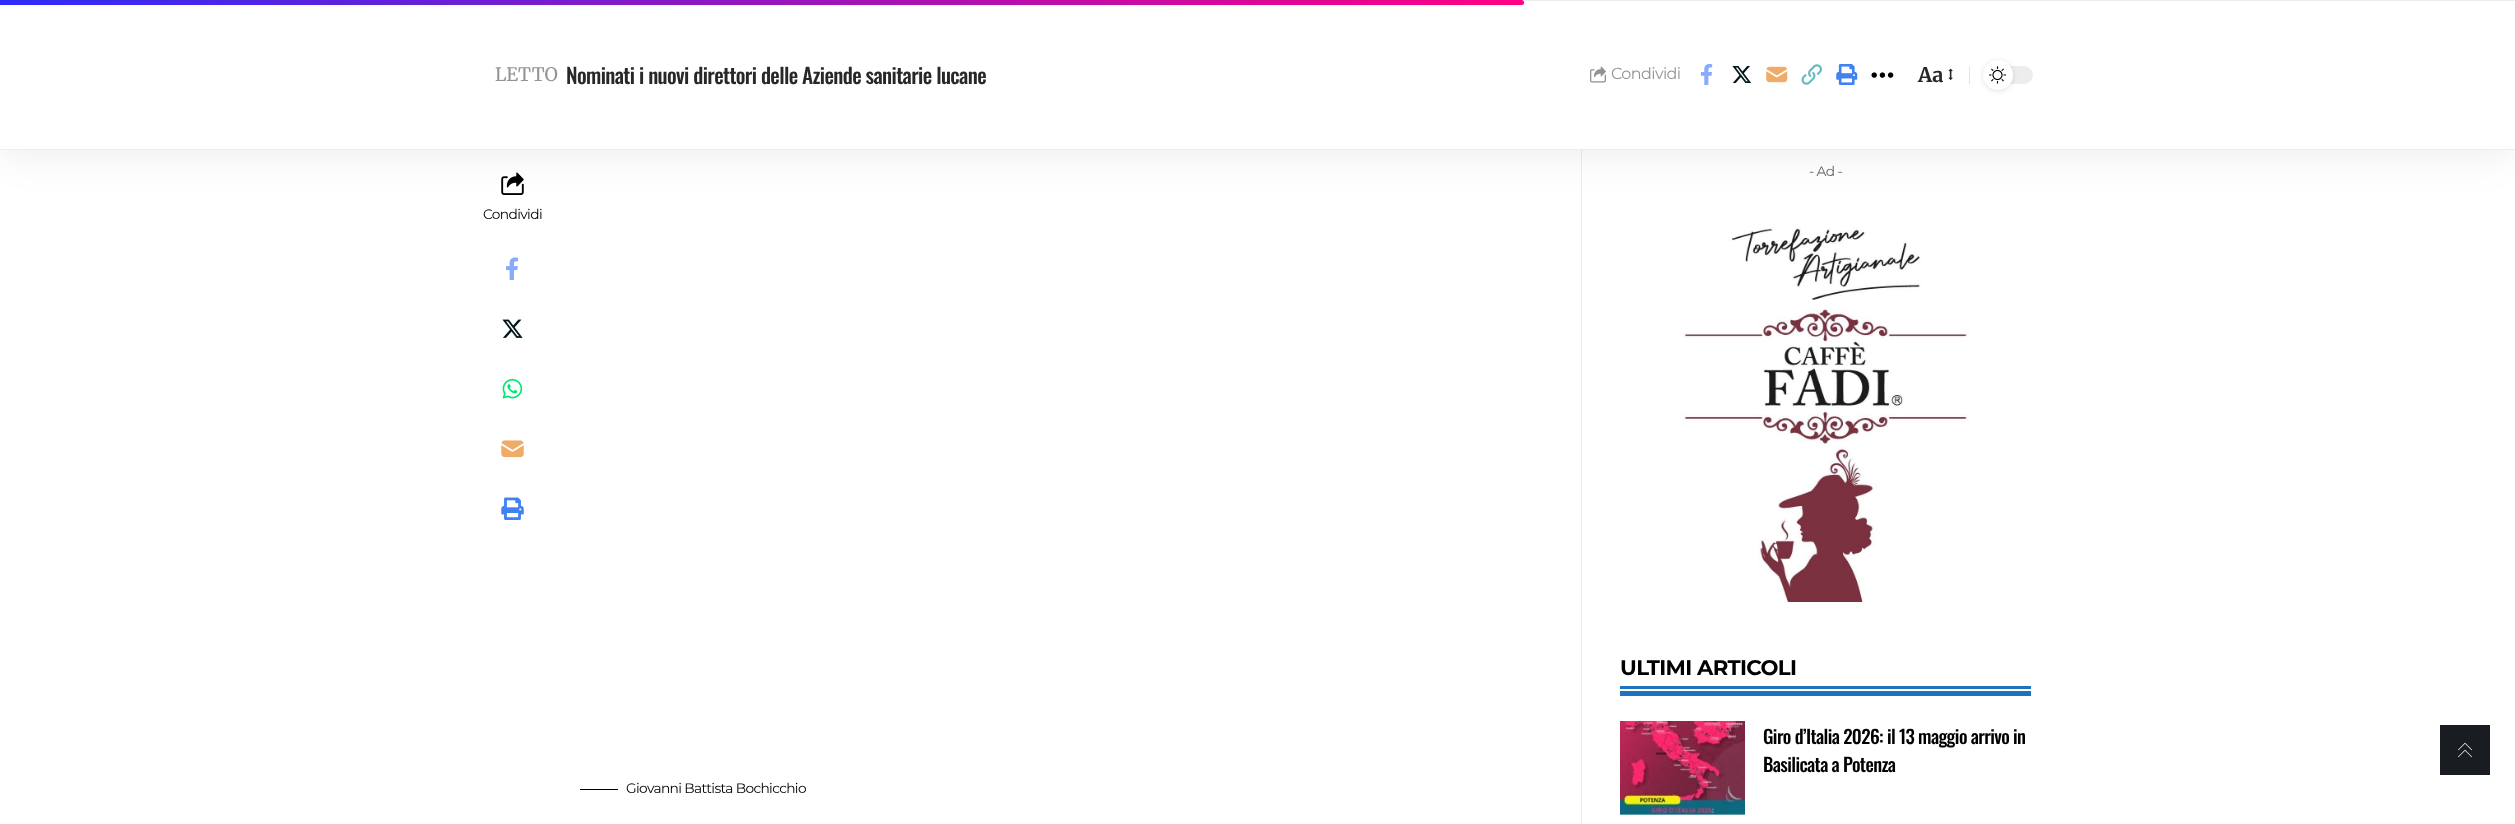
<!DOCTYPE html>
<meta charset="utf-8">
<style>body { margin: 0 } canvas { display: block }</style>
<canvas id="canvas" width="2515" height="824"></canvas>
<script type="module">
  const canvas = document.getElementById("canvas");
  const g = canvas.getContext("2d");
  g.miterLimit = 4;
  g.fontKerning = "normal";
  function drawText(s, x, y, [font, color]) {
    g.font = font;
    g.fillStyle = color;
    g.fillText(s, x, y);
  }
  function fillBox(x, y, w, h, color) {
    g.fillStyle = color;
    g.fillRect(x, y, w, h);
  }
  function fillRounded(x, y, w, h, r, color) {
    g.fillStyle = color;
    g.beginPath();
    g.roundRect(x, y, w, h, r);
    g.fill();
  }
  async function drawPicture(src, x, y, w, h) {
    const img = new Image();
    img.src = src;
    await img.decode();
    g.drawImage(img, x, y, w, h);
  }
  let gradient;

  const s1 = ["18.5px Merriweather", "#949494"];
  const s2 = ["500 21.25px Oswald", "#282828"];
  const s3 = ["16px Montserrat", "#949494"];
  const s4 = ["bold 20px Merriweather", "#282828"];
  const s5 = ["13.75px Montserrat", "#000000"];
  const s6 = ["13.75px Montserrat", "#666666"];
  const s7 = ["bold 21.25px Montserrat", "#000000"];
  const s8 = ["500 18.75px Oswald", "#000000"];

  fillBox(0, 0, 2515, 824, "#FFFFFF");
  await drawPicture("pic10.png", 501, 172, 23, 23);
  fillBox(1581, 150, 1, 674, "#EDEDED");
  g.fillStyle = "rgba(0, 0, 0, 0.07)";
  g.filter = "blur(19px)";
  g.beginPath();
  g.rect(0, 5, 2515, 150);
  g.fill();
  g.filter = "none";
  fillBox(0, 1, 2515, 148, "#FFFFFF");
  fillBox(1521, 0, 994, 1, "#EDEDED");
  gradient = g.createLinearGradient(1524, 2.5, 0, 2.5);
  gradient.addColorStop(0, "#FF0084");
  gradient.addColorStop(1, "#2C2CF8");
  g.fillStyle = gradient;
  g.beginPath();
  g.roundRect(0, 0, 1524, 5, [0, 2.5, 2.5, 0]);
  g.fill();
  drawText("LETTO", 495, 81, s1);
  g.letterSpacing = "-0.62px";
  drawText("Nominati i nuovi direttori delle Aziende sanitarie lucane", 566, 84, s2);
  await drawPicture("pic1.png", 1590, 66, 16, 17);
  drawText("Condividi", 1611, 79, s3);
  await drawPicture("pic2.png", 1700, 64, 13, 21);
  await drawPicture("pic3.png", 1732, 66, 20, 17);
  await drawPicture("pic4.png", 1766, 66, 22, 17);
  await drawPicture("pic5.png", 1801, 64, 21, 21);
  await drawPicture("pic6.png", 1836, 64, 22, 21);
  await drawPicture("pic7.png", 1871, 72, 23, 6);
  g.letterSpacing = "0px";
  drawText("Aa", 1918, 82, s4);
  await drawPicture("pic8.png", 1948, 68, 5, 12);
  fillBox(1969, 66, 1, 18, "#E4E4E4");
  fillRounded(1983, 66, 50, 18, 9, "#EDEDED");
  g.fillStyle = "rgba(0, 0, 0, 0.12)";
  g.filter = "blur(2.5px)";
  g.beginPath();
  g.roundRect(1983, 61, 30, 30, 15);
  g.fill();
  g.filter = "none";
  g.fillStyle = "#FFFFFF";
  g.beginPath();
  g.arc(1998, 75, 15, 0, Math.PI * 2);
  g.fill();
  await drawPicture("pic9.png", 1989, 66, 17, 18);
  fillBox(0, 149, 2515, 1, "#EDEDED");
  g.letterSpacing = "-0.62px";
  drawText("Condividi", 483, 219, s5);
  await drawPicture("pic11.png", 506, 257, 13, 23);
  await drawPicture("pic12.png", 502, 319, 21, 19);
  await drawPicture("pic13.png", 502, 378, 21, 21);
  await drawPicture("pic14.png", 501, 440, 23, 18);
  await drawPicture("pic15.png", 501, 497, 23, 23);
  fillBox(580, 789, 38, 1, "#000000");
  drawText("Giovanni Battista Bochicchio", 626, 793, s5);
  drawText("- Ad -", 1809, 176, s6);
  await drawPicture("pic16.png", 1683, 227, 286, 375);
  fillBox(1620, 691, 411, 5, "#1E73BE");
  drawText("ULTIMI ARTICOLI", 1620, 675, s7);
  fillBox(1620, 686, 411, 3, "#1E73BE");
  await drawPicture("pic17.png", 1620, 721, 125, 94);
  drawText("Giro d’Italia 2026: il 13 maggio arrivo in", 1763, 744, s8);
  drawText("Basilicata a Potenza", 1763, 772, s8);
  fillBox(2440, 725, 50, 50, "#191C20");
  await drawPicture("pic18.png", 2458, 742, 14, 16);
</script>
